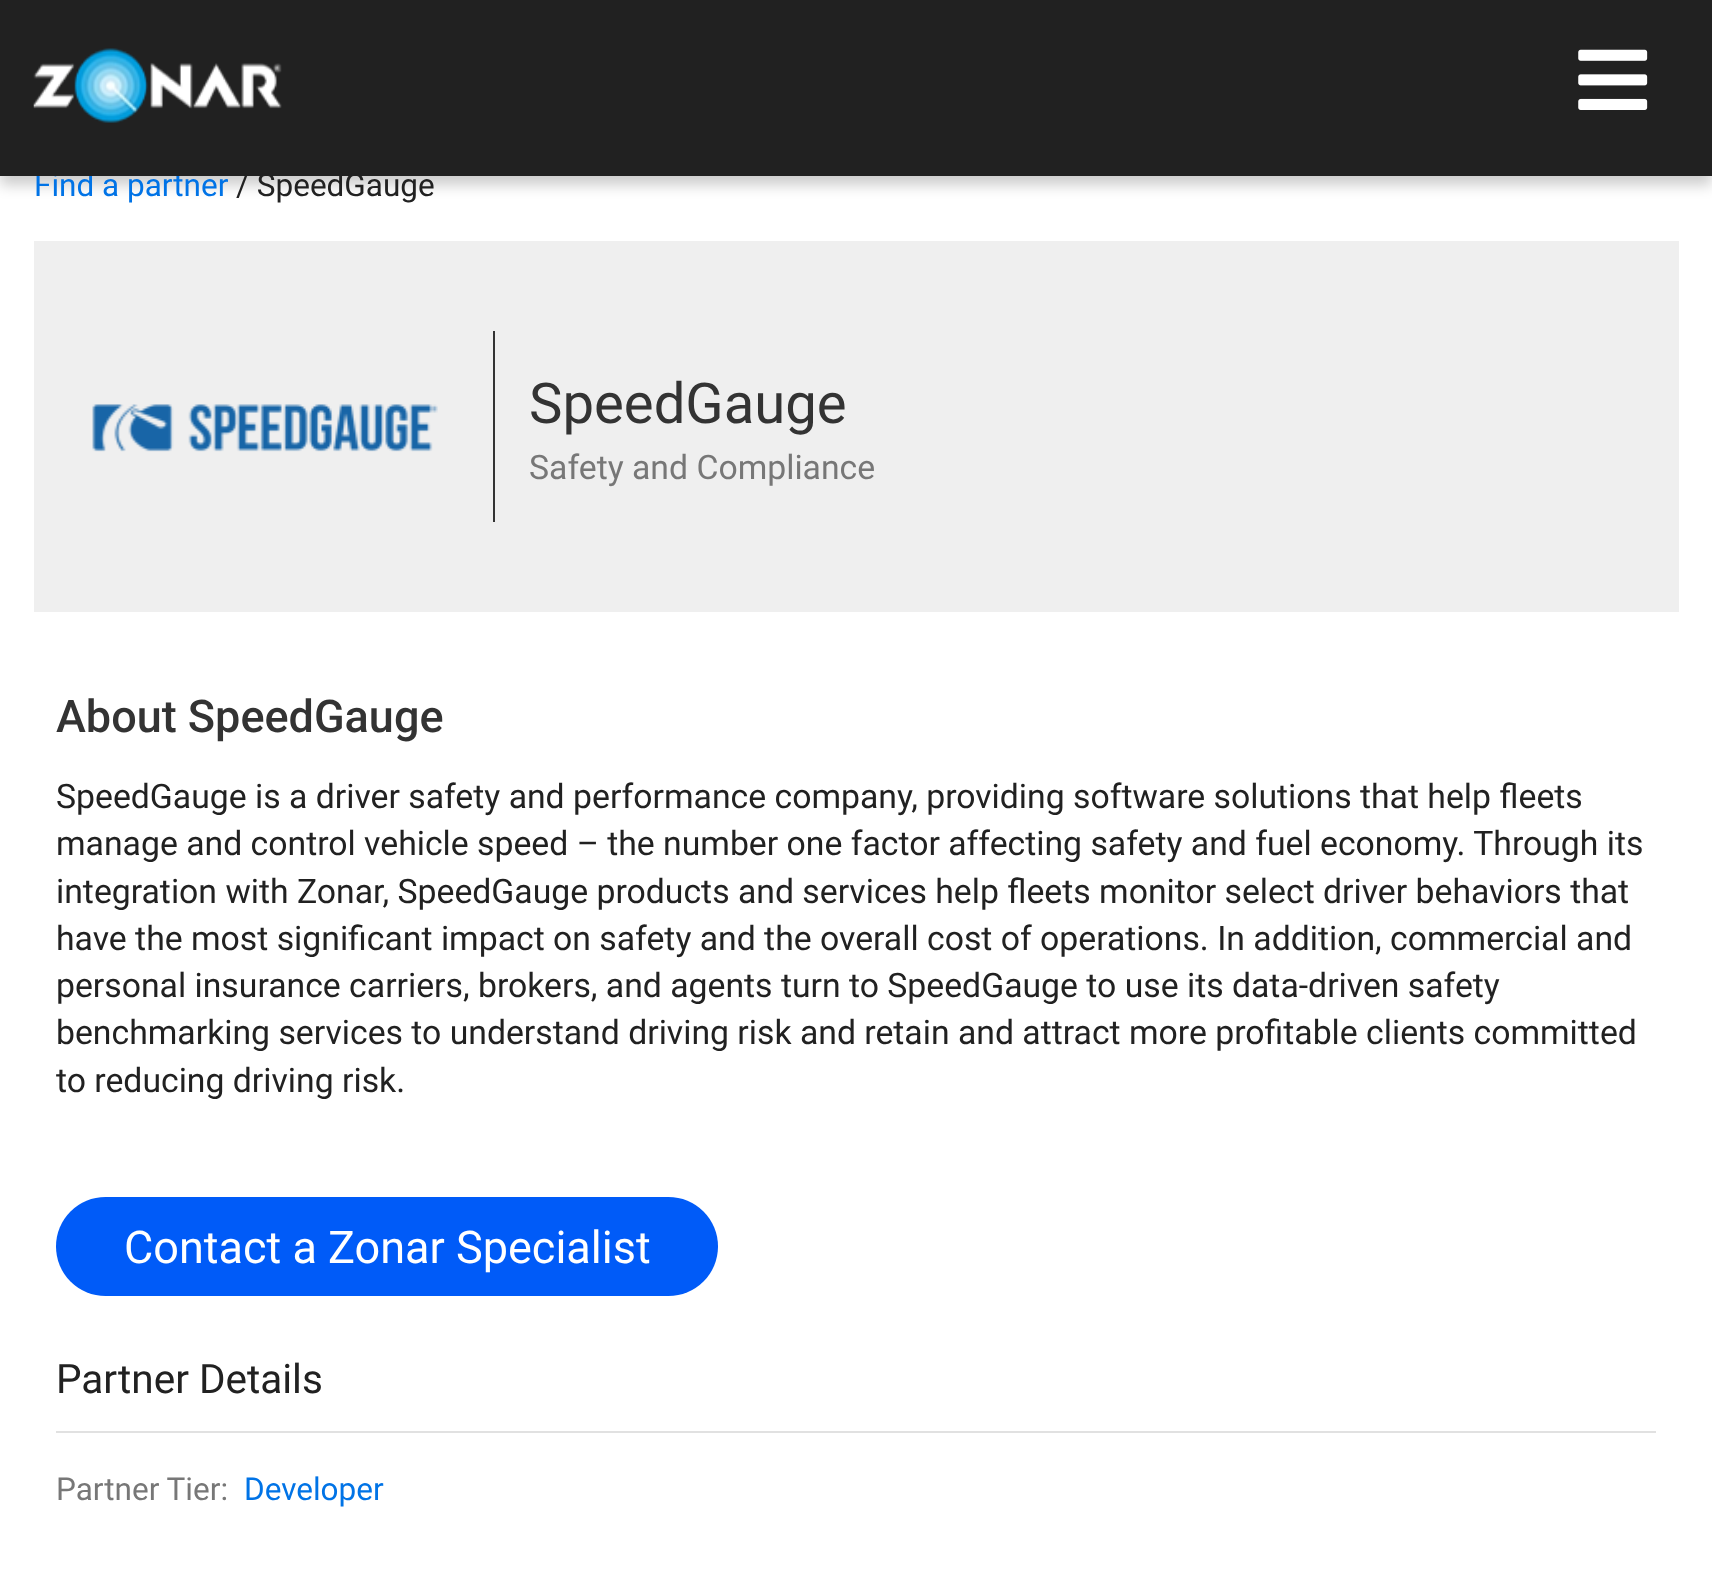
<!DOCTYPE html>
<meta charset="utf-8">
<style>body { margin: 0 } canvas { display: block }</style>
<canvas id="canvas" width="1712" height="1593"></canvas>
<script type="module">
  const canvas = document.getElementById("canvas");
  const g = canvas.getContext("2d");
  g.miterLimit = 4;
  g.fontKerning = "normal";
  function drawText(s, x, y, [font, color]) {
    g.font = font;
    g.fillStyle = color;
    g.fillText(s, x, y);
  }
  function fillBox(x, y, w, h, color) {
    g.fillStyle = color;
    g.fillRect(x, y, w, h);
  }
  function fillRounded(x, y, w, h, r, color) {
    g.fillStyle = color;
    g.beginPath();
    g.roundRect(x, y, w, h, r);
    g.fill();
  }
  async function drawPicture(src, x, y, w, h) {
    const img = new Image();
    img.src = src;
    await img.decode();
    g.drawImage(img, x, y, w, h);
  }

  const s1 = ["31.5px Roboto", "#0073E6"];
  const s2 = ["31.5px Roboto", "#212121"];
  const s3 = ["56.25px Roboto", "#333333"];
  const s4 = ["33.75px Roboto", "#777777"];
  const s5 = ["500 45px Roboto", "#333333"];
  const s6 = ["33.75px Roboto", "#212121"];
  const s7 = ["45px Roboto", "#FFFFFF"];
  const s8 = ["40.5px Roboto", "#212121"];
  const s9 = ["31.5px Roboto", "#777777"];

  fillBox(0, 0, 1712, 1593, "#FFFFFF");
  g.fillStyle = "rgba(0, 0, 0, 0.2)";
  g.filter = "blur(7px)";
  g.beginPath();
  g.rect(0, 9, 1712, 176);
  g.fill();
  g.filter = "none";
  drawText("Find a partner", 34, 196, s1);
  fillBox(0, 0, 1712, 176, "#212121");
  await drawPicture("pic1.png", 33, 48, 249, 75);
  await drawPicture("pic2.png", 1578, 49, 70, 61);
  drawText("/ SpeedGauge", 236, 196, s2);
  fillBox(34, 241, 1645, 371, "#EFEFEF");
  await drawPicture("pic3.png", 92, 404, 346, 48);
  fillBox(493, 331, 2, 191, "#333333");
  drawText("SpeedGauge", 529, 423, s3);
  drawText("Safety and Compliance", 529, 479, s4);
  drawText("About SpeedGauge", 56, 732, s5);
  drawText("SpeedGauge is a driver safety and performance company, providing software solutions that help fleets", 56, 808, s6);
  drawText("manage and control vehicle speed – the number one factor affecting safety and fuel economy. Through its", 56, 855, s6);
  drawText("integration with Zonar, SpeedGauge products and services help fleets monitor select driver behaviors that", 56, 903, s6);
  drawText("have the most significant impact on safety and the overall cost of operations. In addition, commercial and", 56, 950, s6);
  drawText("personal insurance carriers, brokers, and agents turn to SpeedGauge to use its data-driven safety", 56, 997, s6);
  drawText("benchmarking services to understand driving risk and retain and attract more profitable clients committed", 56, 1044, s6);
  drawText("to reducing driving risk.", 56, 1092, s6);
  fillRounded(56, 1197, 662, 99, 49.5, "#005BF8");
  drawText("Contact a Zonar Specialist", 124, 1263, s7);
  fillBox(56, 1431, 1600, 2, "#E1E1E1");
  drawText("Partner Details", 56, 1393, s8);
  drawText("Partner Tier:", 56, 1500, s9);
  drawText("Developer", 244, 1500, s1);
</script>
